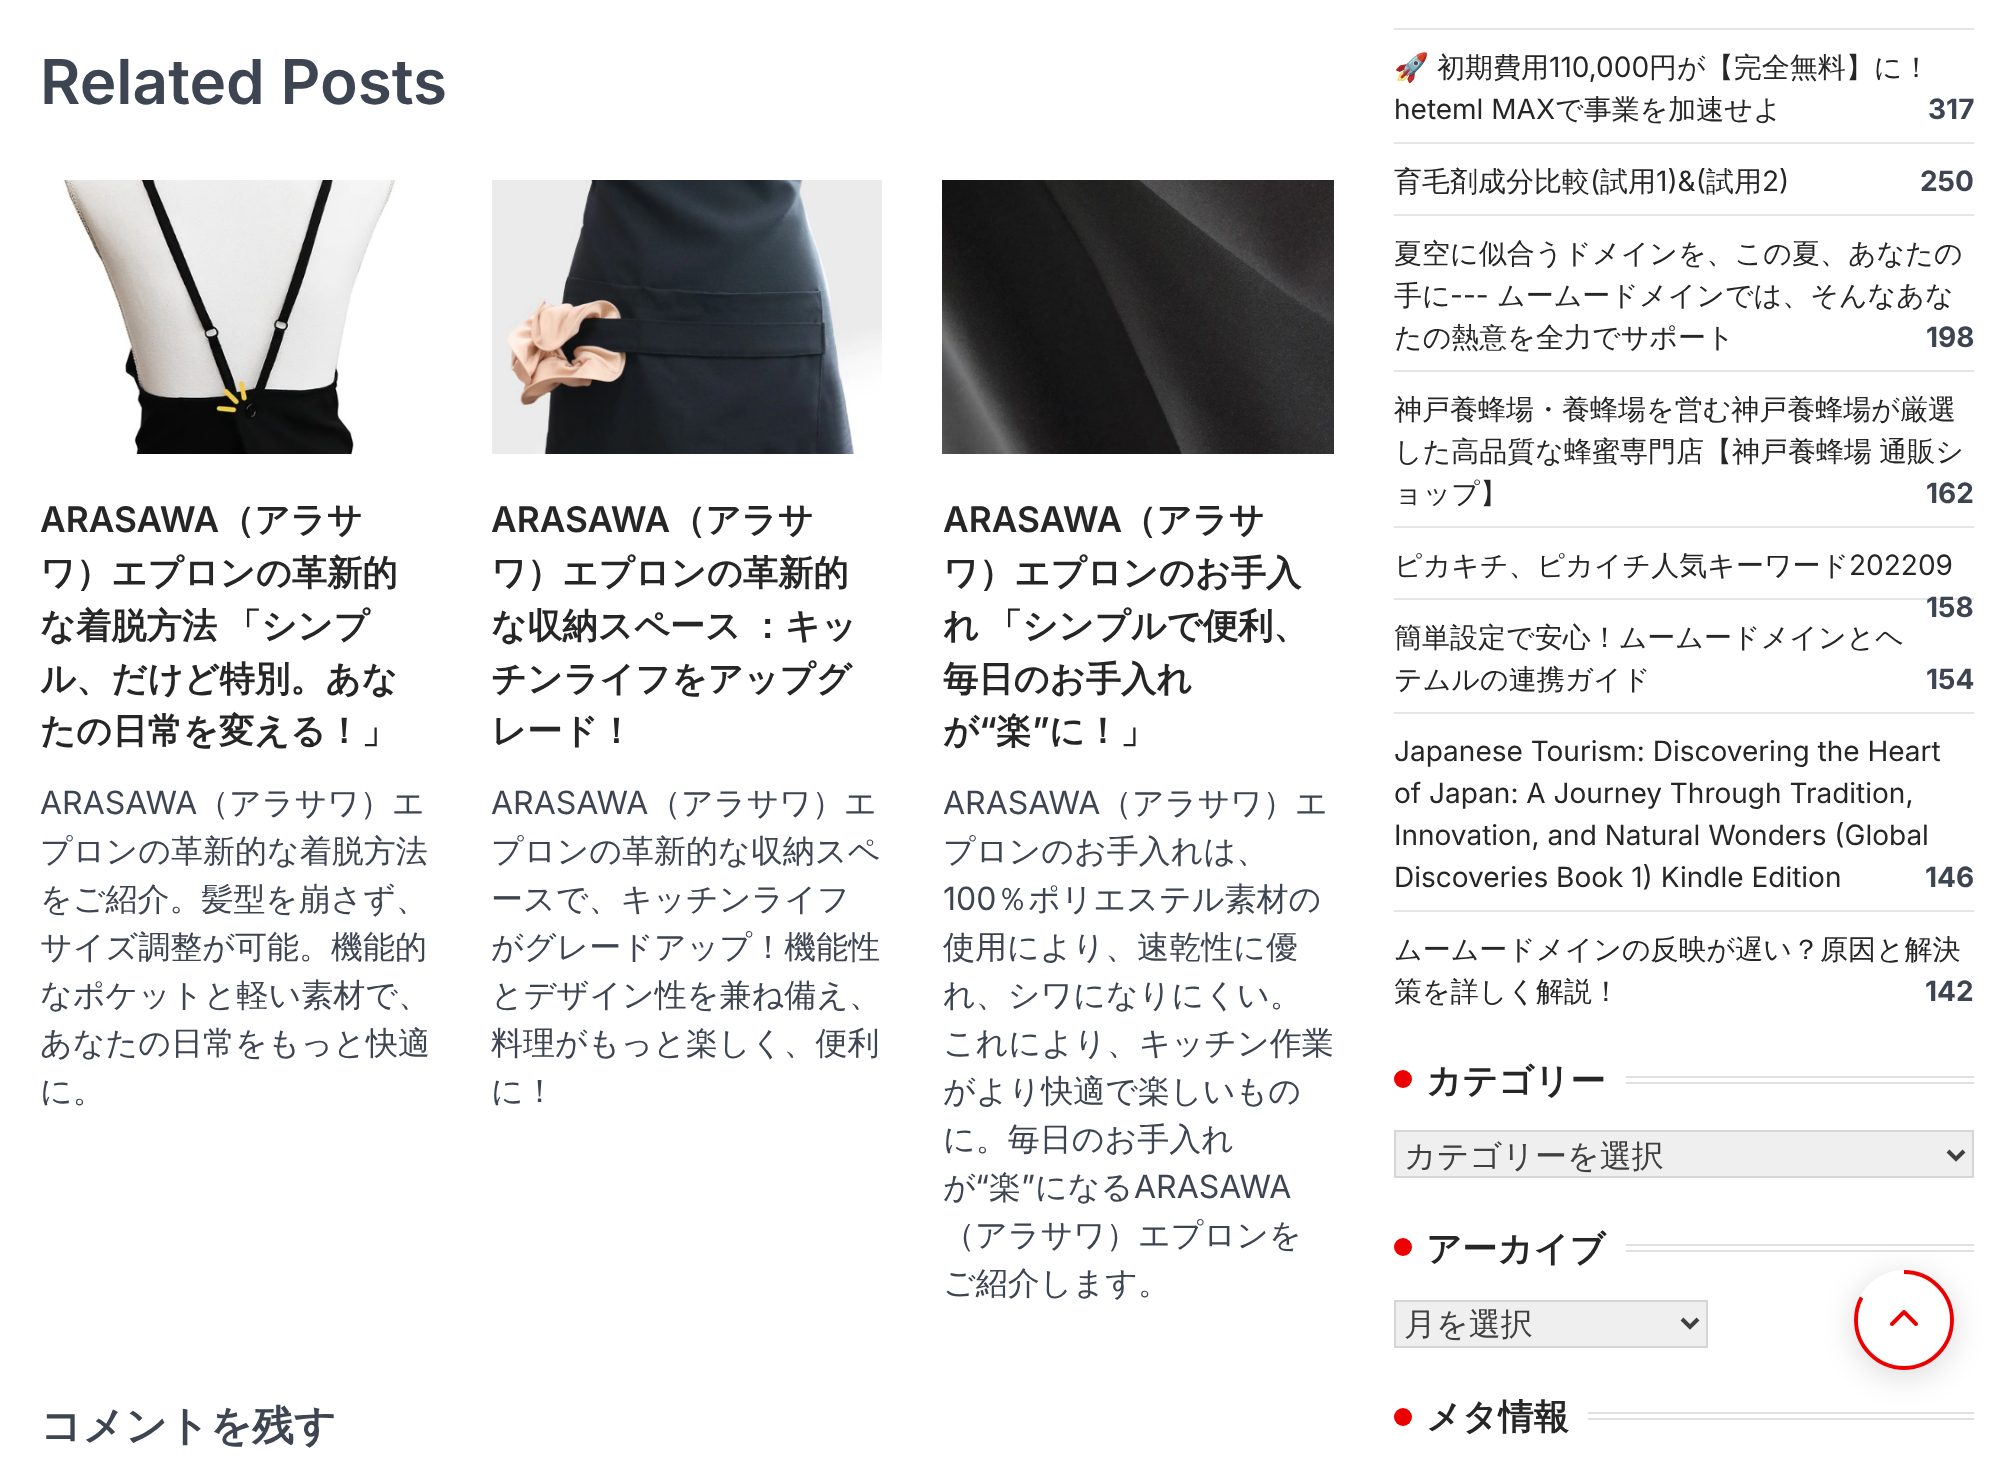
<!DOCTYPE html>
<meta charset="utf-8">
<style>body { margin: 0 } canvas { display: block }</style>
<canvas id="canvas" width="2013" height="1479"></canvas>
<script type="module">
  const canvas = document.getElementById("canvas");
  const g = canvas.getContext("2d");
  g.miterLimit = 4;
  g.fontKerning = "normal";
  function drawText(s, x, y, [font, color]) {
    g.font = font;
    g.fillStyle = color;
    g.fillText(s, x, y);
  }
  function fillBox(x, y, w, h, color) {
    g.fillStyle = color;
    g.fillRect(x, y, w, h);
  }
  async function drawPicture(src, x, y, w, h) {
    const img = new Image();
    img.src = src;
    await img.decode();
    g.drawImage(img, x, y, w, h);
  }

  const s1 = ["600 62px Inter", "#3D4452"];
  const s2 = ["600 35.25px Inter", "#262626"];
  const s3 = ["bold 35.25px WenQuanYi Zen Hei", "#262626"];
  const s4 = ["32px Inter", "#3D4452"];
  const s5 = ["500 32px WenQuanYi Zen Hei", "#3D4452"];
  const s6 = ["bold 41.5px WenQuanYi Zen Hei", "#3D4452"];
  const s7 = ["28px Noto Color Emoji", "#262626"];
  const s8 = ["500 28px WenQuanYi Zen Hei", "#262626"];
  const s9 = ["28px Inter", "#262626"];
  const s10 = ["bold 28px Inter", "#3D4452"];
  const s11 = ["500 32px WenQuanYi Zen Hei", "#404040"];

  fillBox(0, 0, 2013, 1479, "#FFFFFF");
  drawText("Related Posts", 40, 104, s1);
  await drawPicture("pic1.png", 62, 180, 335, 274);
  drawText("ARASAWA", 40, 532, s2);
  drawText("（アラサ", 219, 532, s3);
  drawText("ワ）エプロンの革新的", 40, 585, s3);
  drawText("な着脱方法", 40, 638, s3);
  drawText("「シンプ", 226, 638, s3);
  drawText("ル、だけど特別。あな", 40, 691, s3);
  drawText("たの日常を変える！」", 40, 743, s3);
  drawText("ARASAWA", 40, 814, s4);
  drawText("（アラサワ）エ", 197, 814, s5);
  drawText("プロンの革新的な着脱方法", 40, 862, s5);
  drawText("をご紹介。髪型を崩さず、", 40, 910, s5);
  drawText("サイズ調整が可能。機能的", 40, 958, s5);
  drawText("なポケットと軽い素材で、", 40, 1006, s5);
  drawText("あなたの日常をもっと快適", 40, 1054, s5);
  drawText("に。", 40, 1102, s5);
  await drawPicture("pic2.png", 492, 180, 390, 274);
  drawText("ARASAWA", 491, 532, s2);
  drawText("（アラサ", 670, 532, s3);
  drawText("ワ）エプロンの革新的", 491, 585, s3);
  g.wordSpacing = "-2px";
  drawText("な収納スペース ：キッ", 491, 638, s3);
  g.wordSpacing = "0px";
  drawText("チンライフをアップグ", 491, 691, s3);
  drawText("レード！", 491, 743, s3);
  drawText("ARASAWA", 491, 814, s4);
  drawText("（アラサワ）エ", 649, 814, s5);
  drawText("プロンの革新的な収納スペ", 491, 862, s5);
  drawText("ースで、キッチンライフ", 491, 910, s5);
  drawText("がグレードアップ！機能性", 491, 958, s5);
  drawText("とデザイン性を兼ね備え、", 491, 1006, s5);
  drawText("料理がもっと楽しく、便利", 491, 1054, s5);
  drawText("に！", 491, 1102, s5);
  await drawPicture("pic3.png", 942, 180, 392, 274);
  drawText("ARASAWA", 943, 532, s2);
  drawText("（アラサ", 1121, 532, s3);
  drawText("ワ）エプロンのお手入", 943, 585, s3);
  drawText("れ", 943, 638, s3);
  drawText("「シンプルで便利、", 987, 638, s3);
  drawText("毎日のお手入れ", 943, 691, s3);
  drawText("が", 943, 743, s3);
  drawText("“", 979, 743, s2);
  drawText("楽", 996, 743, s3);
  drawText("”", 1032, 743, s2);
  drawText("に！」", 1049, 743, s3);
  drawText("ARASAWA", 943, 814, s4);
  drawText("（アラサワ）エ", 1100, 814, s5);
  drawText("プロンのお手入れは、", 943, 862, s5);
  drawText("100", 943, 910, s4);
  drawText("％ポリエステル素材の", 996, 910, s5);
  drawText("使用により、速乾性に優", 943, 958, s5);
  drawText("れ、シワになりにくい。", 943, 1006, s5);
  drawText("これにより、キッチン作業", 943, 1054, s5);
  drawText("がより快適で楽しいもの", 943, 1102, s5);
  drawText("に。毎日のお手入れ", 943, 1150, s5);
  drawText("が", 943, 1198, s5);
  drawText("“", 975, 1198, s4);
  drawText("楽", 989, 1198, s5);
  drawText("”", 1021, 1198, s4);
  drawText("になる", 1035, 1198, s5);
  drawText("ARASAWA", 1134, 1198, s4);
  drawText("（アラサワ）エプロンを", 943, 1246, s5);
  drawText("ご紹介します。", 943, 1294, s5);
  drawText("コメントを残す", 40, 1440, s6);
  fillBox(1394, 28, 580, 2, "#E6E6E6");
  fillBox(1394, 142, 580, 2, "#E6E6E6");
  drawText("🚀", 1394, 77, s7);
  drawText("初期費用", 1437, 77, s8);
  drawText("110,000", 1549, 77, s9);
  drawText("円が【完全無料】に！", 1649, 77, s8);
  drawText("heteml MAX", 1394, 119, s9);
  drawText("で事業を加速せよ", 1555, 119, s8);
  drawText("317", 1928, 119, s10);
  fillBox(1394, 214, 580, 2, "#E6E6E6");
  drawText("育毛剤成分比較", 1394, 191, s8);
  drawText("(", 1590, 191, s9);
  drawText("試用", 1600, 191, s8);
  drawText("1)&(", 1656, 191, s9);
  drawText("試用", 1706, 191, s8);
  drawText("2)", 1762, 191, s9);
  drawText("250", 1920, 191, s10);
  fillBox(1394, 370, 580, 2, "#E6E6E6");
  drawText("夏空に似合うドメインを、この夏、あなたの", 1394, 263, s8);
  drawText("手に", 1394, 305, s8);
  drawText("---", 1450, 305, s9);
  drawText("ムームードメインでは、そんなあな", 1497, 305, s8);
  drawText("たの熱意を全力でサポート", 1394, 347, s8);
  drawText("198", 1926, 347, s10);
  fillBox(1394, 526, 580, 2, "#E6E6E6");
  drawText("神戸養蜂場・養蜂場を営む神戸養蜂場が厳選", 1394, 419, s8);
  g.wordSpacing = "-1px";
  drawText("した高品質な蜂蜜専門店【神戸養蜂場 通販シ", 1394, 461, s8);
  g.wordSpacing = "0px";
  drawText("ョップ】", 1394, 503, s8);
  drawText("162", 1926, 503, s10);
  fillBox(1394, 598, 580, 2, "#E6E6E6");
  drawText("ピカキチ、ピカイチ人気キーワード", 1394, 575, s8);
  drawText("202209", 1849, 575, s9);
  drawText("158", 1926, 617, s10);
  fillBox(1394, 712, 580, 2, "#E6E6E6");
  drawText("簡単設定で安心！ムームードメインとヘ", 1394, 647, s8);
  drawText("テムルの連携ガイド", 1394, 689, s8);
  drawText("154", 1926, 689, s10);
  fillBox(1394, 910, 580, 2, "#E6E6E6");
  drawText("Japanese Tourism: Discovering the Heart", 1394, 761, s9);
  drawText("of Japan: A Journey Through Tradition,", 1394, 803, s9);
  drawText("Innovation, and Natural Wonders (Global", 1394, 845, s9);
  drawText("Discoveries Book 1) Kindle Edition", 1394, 887, s9);
  drawText("146", 1925, 887, s10);
  drawText("ムームードメインの反映が遅い？原因と解決", 1394, 959, s8);
  drawText("策を詳しく解説！", 1394, 1001, s8);
  drawText("142", 1925, 1001, s10);
  g.fillStyle = "#ED0000";
  g.beginPath();
  g.arc(1403, 1079, 9, 0, Math.PI * 2);
  g.fill();
  drawText("カテゴリー", 1426, 1093, s3);
  fillBox(1626, 1076, 348, 2, "#E1E1E1");
  fillBox(1626, 1082, 348, 2, "#E1E1E1");
  g.fillStyle = "#EFEFEF";
  g.beginPath();
  g.rect(1395, 1131, 578, 46);
  g.fill();
  g.strokeStyle = "#D6D6D6";
  g.lineWidth = 2;
  g.stroke();
  g.beginPath();
  g.moveTo(1948, 1151);
  g.lineTo(1956, 1159);
  g.lineTo(1964, 1151);
  g.strokeStyle = "#404040";
  g.lineWidth = 4;
  g.stroke();
  drawText("カテゴリーを選択", 1404, 1167, s11);
  g.fillStyle = "#ED0000";
  g.beginPath();
  g.arc(1403, 1247, 9, 0, Math.PI * 2);
  g.fill();
  drawText("アーカイブ", 1426, 1261, s3);
  fillBox(1626, 1244, 348, 2, "#E1E1E1");
  fillBox(1626, 1250, 348, 2, "#E1E1E1");
  g.fillStyle = "#EFEFEF";
  g.beginPath();
  g.rect(1395, 1301, 312, 46);
  g.fill();
  g.strokeStyle = "#D6D6D6";
  g.lineWidth = 2;
  g.stroke();
  g.beginPath();
  g.moveTo(1682, 1319);
  g.lineTo(1690, 1327);
  g.lineTo(1698, 1319);
  g.strokeStyle = "#404040";
  g.lineWidth = 4;
  g.stroke();
  drawText("月を選択", 1404, 1335, s11);
  g.fillStyle = "#ED0000";
  g.beginPath();
  g.arc(1403, 1417, 9, 0, Math.PI * 2);
  g.fill();
  drawText("メタ情報", 1426, 1429, s3);
  fillBox(1588, 1412, 386, 2, "#E1E1E1");
  fillBox(1588, 1418, 386, 2, "#E1E1E1");
  g.fillStyle = "rgba(0, 0, 0, 0.15)";
  g.filter = "blur(16px)";
  g.beginPath();
  g.roundRect(1854, 1276, 100, 100, 50);
  g.fill();
  g.filter = "none";
  g.fillStyle = "#FFFFFF";
  g.beginPath();
  g.arc(1904, 1320, 50, 0, Math.PI * 2);
  g.fill();
  await drawPicture("pic4.png", 1890, 1310, 28, 16);
  g.beginPath();
  g.moveTo(1904, 1272);
  g.bezierCurveTo(1930.5, 1272, 1952, 1293.5, 1952, 1320);
  g.bezierCurveTo(1952, 1346.5, 1930.5, 1368, 1904, 1368);
  g.bezierCurveTo(1877.5, 1368, 1856, 1346.5, 1856, 1320);
  g.bezierCurveTo(1856, 1312, 1858, 1304, 1861.5, 1297.5);
  g.strokeStyle = "#ED0000";
  g.lineWidth = 3.9;
  g.stroke();
</script>
